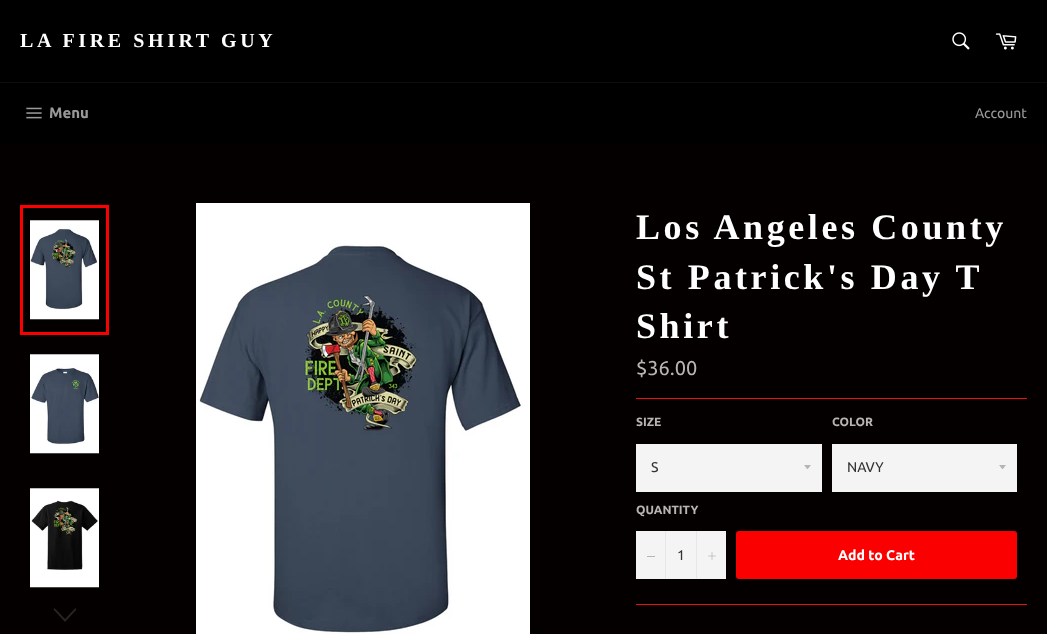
<!DOCTYPE html>
<meta charset="utf-8">
<style>body { margin: 0 } canvas { display: block }</style>
<canvas id="canvas" width="1047" height="634"></canvas>
<script type="module">
  const canvas = document.getElementById("canvas");
  const g = canvas.getContext("2d");
  g.miterLimit = 4;
  g.fontKerning = "normal";
  function drawText(s, x, y, [font, color]) {
    g.font = font;
    g.fillStyle = color;
    g.fillText(s, x, y);
  }
  function fillBox(x, y, w, h, color) {
    g.fillStyle = color;
    g.fillRect(x, y, w, h);
  }
  function fillRounded(x, y, w, h, r, color) {
    g.fillStyle = color;
    g.beginPath();
    g.roundRect(x, y, w, h, r);
    g.fill();
  }
  async function drawPicture(src, x, y, w, h) {
    const img = new Image();
    img.src = src;
    await img.decode();
    g.drawImage(img, x, y, w, h);
  }

  const s1 = ["bold 20px Liberation Serif", "#FFFFFF"];
  const s2 = ["bold 15px Ubuntu", "#999999"];
  const s3 = ["14px Ubuntu", "#999999"];
  const s4 = ["bold 36px Liberation Serif", "#FFFFFF"];
  const s5 = ["20px Ubuntu", "#BAB3B3"];
  const s6 = ["bold 12px Ubuntu", "#BAB3B3"];
  const s7 = ["14px Ubuntu", "#333333"];
  const s8 = ["bold 14px Ubuntu", "#FFFFFF"];

  fillBox(0, 0, 1047, 634, "#000000");
  g.letterSpacing = "3.6px";
  drawText("LA FIRE SHIRT GUY", 20, 47, s1);
  await drawPicture("pic1.png", 952, 32, 18, 18);
  await drawPicture("pic2.png", 995, 33, 22, 17);
  fillBox(0, 82, 1047, 1, "#0D0D0D");
  await drawPicture("pic3.png", 26, 107, 16, 12);
  g.letterSpacing = "0px";
  drawText("Menu", 49, 118, s2);
  drawText("Account", 975, 118, s3);
  fillBox(0, 145, 1047, 489, "#040000");
  await drawPicture("pic4.png", 30, 220, 69, 100);
  g.strokeStyle = "#FB0000";
  g.lineWidth = 3;
  g.strokeRect(21.5, 206.5, 86, 127);
  await drawPicture("pic5.png", 30, 354, 69, 100);
  await drawPicture("pic6.png", 30, 488, 69, 100);
  g.fillStyle = "#282424";
  g.beginPath();
  g.moveTo(75.5, 608);
  g.lineTo(76.5, 609.5);
  g.lineTo(65, 622);
  g.lineTo(53.5, 609.5);
  g.lineTo(54.5, 608);
  g.lineTo(65, 619);
  g.closePath();
  g.fill();
  await drawPicture("pic7.png", 196, 203, 334, 431);
  g.letterSpacing = "3.6px";
  drawText("Los Angeles County", 636, 239, s4);
  drawText("St Patrick's Day T", 636, 289, s4);
  drawText("Shirt", 636, 338, s4);
  g.letterSpacing = "0px";
  drawText("$36.00", 636, 375, s5);
  fillBox(636, 398, 391, 1, "#EB0F0F");
  drawText("SIZE", 636, 426, s6);
  fillBox(636, 444, 186, 48, "#F4F4F4");
  g.fillStyle = "#BAB3B3";
  g.beginPath();
  g.moveTo(804, 465);
  g.bezierCurveTo(808.5, 470.5, 806.5, 470.5, 811, 465);
  g.closePath();
  g.fill();
  drawText("S", 651, 472, s7);
  drawText("COLOR", 832, 426, s6);
  fillBox(832, 444, 185, 48, "#F4F4F4");
  g.fillStyle = "#BAB3B3";
  g.beginPath();
  g.moveTo(999, 465);
  g.bezierCurveTo(1003.5, 470.5, 1001.5, 470.5, 1006, 465);
  g.closePath();
  g.fill();
  drawText("NAVY", 847, 472, s7);
  drawText("QUANTITY", 636, 514, s6);
  fillBox(636, 531, 90, 48, "#F4F4F4");
  fillBox(665, 531, 1, 48, "#E7E7E7");
  fillBox(647, 556, 8, 1, "#BAB3B3");
  drawText("1", 677, 560, s7);
  fillBox(696, 531, 1, 48, "#E7E7E7");
  await drawPicture("pic8.png", 708, 552, 8, 8);
  fillRounded(736, 531, 281, 48, 3, "#FB0000");
  drawText("Add to Cart", 838, 560, s8);
  fillBox(636, 604, 391, 1, "#EB0F0F");
</script>
